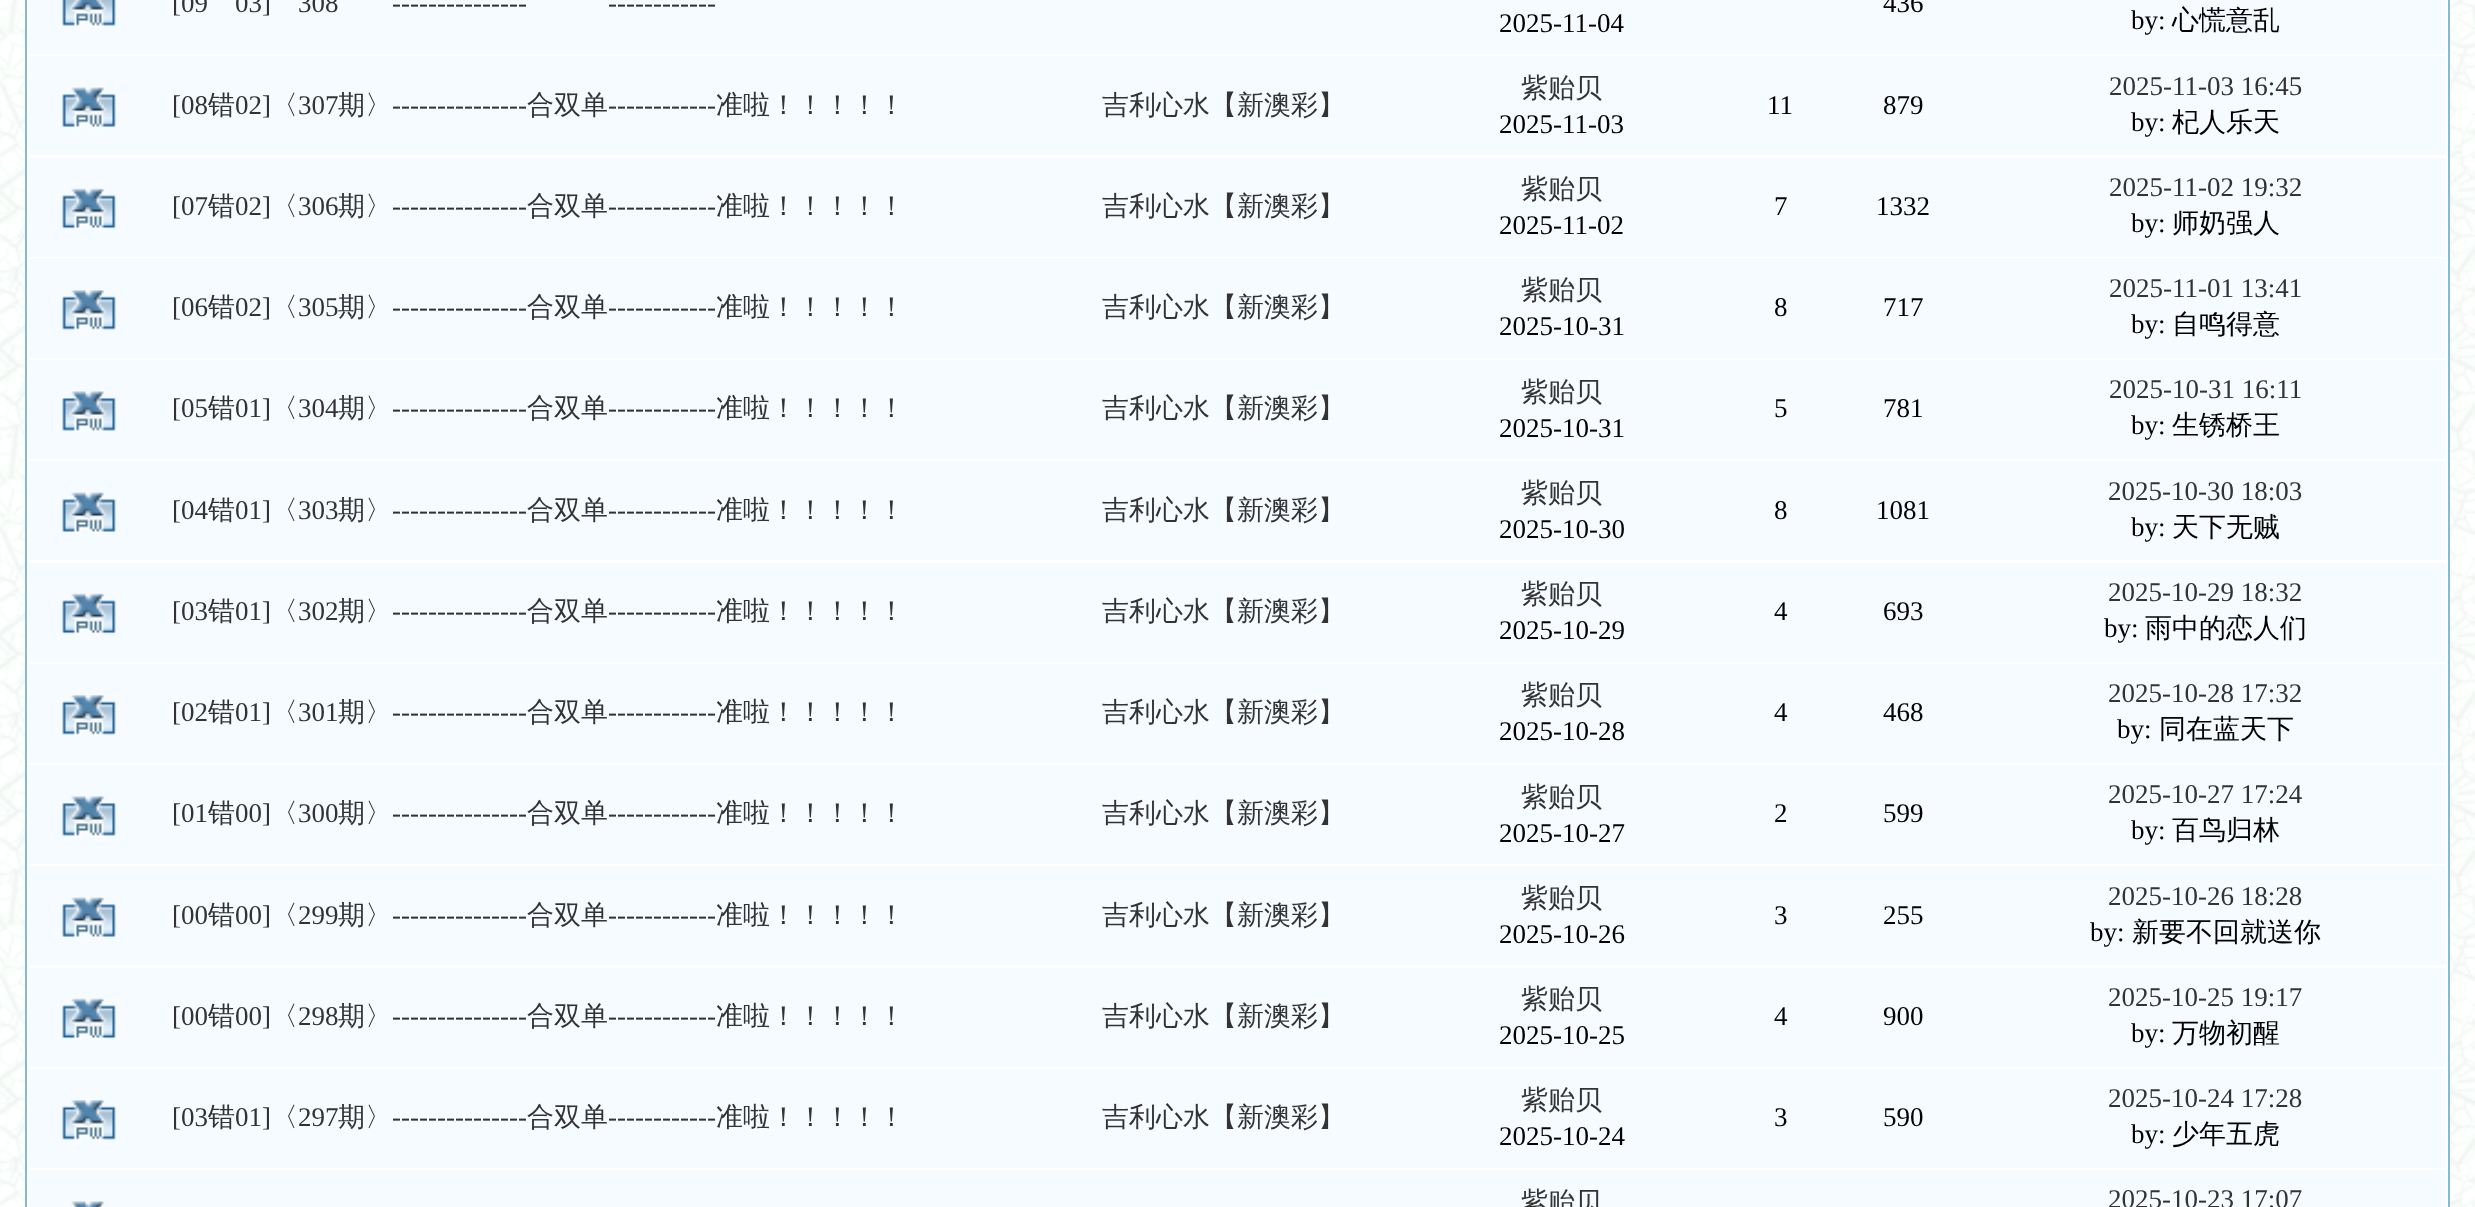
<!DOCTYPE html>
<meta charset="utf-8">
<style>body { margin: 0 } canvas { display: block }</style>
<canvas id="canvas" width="2475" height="1207"></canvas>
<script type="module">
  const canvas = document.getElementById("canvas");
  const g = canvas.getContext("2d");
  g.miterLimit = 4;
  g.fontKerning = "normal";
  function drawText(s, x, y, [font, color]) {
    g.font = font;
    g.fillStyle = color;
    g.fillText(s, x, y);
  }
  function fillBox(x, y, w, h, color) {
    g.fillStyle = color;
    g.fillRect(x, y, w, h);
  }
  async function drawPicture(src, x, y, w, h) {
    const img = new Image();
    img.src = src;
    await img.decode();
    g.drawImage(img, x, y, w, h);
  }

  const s1 = ["27px Liberation Serif", "#333333"];
  const s2 = ["27px Liberation Serif", "#000000"];
  const s3 = ["500 27px WenQuanYi Zen Hei", "#000000"];
  const s4 = ["500 27px WenQuanYi Zen Hei", "#333333"];

  fillBox(0, 0, 2475, 1207, "#FFFFFF");
  await drawPicture("pic1.png", 0, 0, 2475, 1207);
  g.beginPath();
  g.rect(26, -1, 2423, 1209);
  g.fill();
  g.strokeStyle = "#86B9D6";
  g.lineWidth = 2;
  g.stroke();
  fillBox(29, 0, 2417, 54, "#F5FBFF");
  await drawPicture("pic2.png", 62, 0, 54, 27);
  drawText("[09", 172, 12, s1);
  drawText("03]", 235, 12, s1);
  drawText("308", 298, 12, s1);
  drawText("---------------", 392, 12, s1);
  drawText("------------", 608, 12, s1);
  drawText("2025-11-04", 1499, 32, s2);
  drawText("436", 1883, 12, s2);
  drawText("by:", 2131, 29, s2);
  drawText("心慌意乱", 2172, 29, s3);
  fillBox(29, 56, 2417, 99, "#F5FBFF");
  await drawPicture("pic3.png", 62, 86, 54, 43);
  drawText("[08", 172, 114, s1);
  drawText("错", 208, 114, s4);
  drawText("02]", 235, 114, s1);
  drawText("〈", 271, 114, s4);
  drawText("307", 298, 114, s1);
  drawText("期〉", 338, 114, s4);
  drawText("---------------", 392, 114, s1);
  drawText("合双单", 527, 114, s4);
  drawText("------------", 608, 114, s1);
  drawText("准啦！！！！！", 716, 114, s4);
  drawText("吉利心水【新澳彩】", 1102, 114, s4);
  drawText("紫贻贝", 1521, 97, s4);
  drawText("2025-11-03", 1499, 133, s2);
  drawText("11", 1767, 114, s2);
  drawText("879", 1883, 114, s2);
  drawText("2025-11-03 16:45", 2109, 95, s1);
  drawText("by:", 2131, 131, s2);
  drawText("杞人乐天", 2172, 131, s3);
  fillBox(29, 158, 2417, 99, "#F5FBFF");
  await drawPicture("pic4.png", 62, 187, 54, 43);
  drawText("[07", 172, 215, s1);
  drawText("错", 208, 215, s4);
  drawText("02]", 235, 215, s1);
  drawText("〈", 271, 215, s4);
  drawText("306", 298, 215, s1);
  drawText("期〉", 338, 215, s4);
  drawText("---------------", 392, 215, s1);
  drawText("合双单", 527, 215, s4);
  drawText("------------", 608, 215, s1);
  drawText("准啦！！！！！", 716, 215, s4);
  drawText("吉利心水【新澳彩】", 1102, 215, s4);
  drawText("紫贻贝", 1521, 198, s4);
  drawText("2025-11-02", 1499, 234, s2);
  drawText("7", 1774, 215, s2);
  drawText("1332", 1876, 215, s2);
  drawText("2025-11-02 19:32", 2109, 196, s1);
  drawText("by:", 2131, 232, s2);
  drawText("师奶强人", 2172, 232, s3);
  fillBox(29, 259, 2417, 99, "#F5FBFF");
  await drawPicture("pic5.png", 62, 289, 54, 42);
  drawText("[06", 172, 316, s1);
  drawText("错", 208, 316, s4);
  drawText("02]", 235, 316, s1);
  drawText("〈", 271, 316, s4);
  drawText("305", 298, 316, s1);
  drawText("期〉", 338, 316, s4);
  drawText("---------------", 392, 316, s1);
  drawText("合双单", 527, 316, s4);
  drawText("------------", 608, 316, s1);
  drawText("准啦！！！！！", 716, 316, s4);
  drawText("吉利心水【新澳彩】", 1102, 316, s4);
  drawText("紫贻贝", 1521, 299, s4);
  drawText("2025-10-31", 1499, 335, s2);
  drawText("8", 1774, 316, s2);
  drawText("717", 1883, 316, s2);
  drawText("2025-11-01 13:41", 2109, 297, s1);
  drawText("by:", 2131, 333, s2);
  drawText("自鸣得意", 2172, 333, s3);
  fillBox(29, 360, 2417, 99, "#F5FBFF");
  await drawPicture("pic6.png", 62, 390, 54, 42);
  drawText("[05", 172, 417, s1);
  drawText("错", 208, 417, s4);
  drawText("01]", 235, 417, s1);
  drawText("〈", 271, 417, s4);
  drawText("304", 298, 417, s1);
  drawText("期〉", 338, 417, s4);
  drawText("---------------", 392, 417, s1);
  drawText("合双单", 527, 417, s4);
  drawText("------------", 608, 417, s1);
  drawText("准啦！！！！！", 716, 417, s4);
  drawText("吉利心水【新澳彩】", 1102, 417, s4);
  drawText("紫贻贝", 1521, 401, s4);
  drawText("2025-10-31", 1499, 437, s2);
  drawText("5", 1774, 417, s2);
  drawText("781", 1883, 417, s2);
  drawText("2025-10-31 16:11", 2109, 398, s1);
  drawText("by:", 2131, 434, s2);
  drawText("生锈桥王", 2172, 434, s3);
  fillBox(29, 461, 2417, 99, "#F5FBFF");
  await drawPicture("pic7.png", 62, 491, 54, 43);
  drawText("[04", 172, 519, s1);
  drawText("错", 208, 519, s4);
  drawText("01]", 235, 519, s1);
  drawText("〈", 271, 519, s4);
  drawText("303", 298, 519, s1);
  drawText("期〉", 338, 519, s4);
  drawText("---------------", 392, 519, s1);
  drawText("合双单", 527, 519, s4);
  drawText("------------", 608, 519, s1);
  drawText("准啦！！！！！", 716, 519, s4);
  drawText("吉利心水【新澳彩】", 1102, 519, s4);
  drawText("紫贻贝", 1521, 502, s4);
  drawText("2025-10-30", 1499, 538, s2);
  drawText("8", 1774, 519, s2);
  drawText("1081", 1876, 519, s2);
  drawText("2025-10-30 18:03", 2108, 500, s1);
  drawText("by:", 2131, 536, s2);
  drawText("天下无贼", 2172, 536, s3);
  fillBox(29, 563, 2417, 99, "#F5FBFF");
  await drawPicture("pic8.png", 62, 592, 54, 43);
  drawText("[03", 172, 620, s1);
  drawText("错", 208, 620, s4);
  drawText("01]", 235, 620, s1);
  drawText("〈", 271, 620, s4);
  drawText("302", 298, 620, s1);
  drawText("期〉", 338, 620, s4);
  drawText("---------------", 392, 620, s1);
  drawText("合双单", 527, 620, s4);
  drawText("------------", 608, 620, s1);
  drawText("准啦！！！！！", 716, 620, s4);
  drawText("吉利心水【新澳彩】", 1102, 620, s4);
  drawText("紫贻贝", 1521, 603, s4);
  drawText("2025-10-29", 1499, 639, s2);
  drawText("4", 1774, 620, s2);
  drawText("693", 1883, 620, s2);
  drawText("2025-10-29 18:32", 2108, 601, s1);
  drawText("by:", 2104, 637, s2);
  drawText("雨中的恋人们", 2145, 637, s3);
  fillBox(29, 664, 2417, 99, "#F5FBFF");
  await drawPicture("pic5.png", 62, 694, 54, 42);
  drawText("[02", 172, 721, s1);
  drawText("错", 208, 721, s4);
  drawText("01]", 235, 721, s1);
  drawText("〈", 271, 721, s4);
  drawText("301", 298, 721, s1);
  drawText("期〉", 338, 721, s4);
  drawText("---------------", 392, 721, s1);
  drawText("合双单", 527, 721, s4);
  drawText("------------", 608, 721, s1);
  drawText("准啦！！！！！", 716, 721, s4);
  drawText("吉利心水【新澳彩】", 1102, 721, s4);
  drawText("紫贻贝", 1521, 704, s4);
  drawText("2025-10-28", 1499, 740, s2);
  drawText("4", 1774, 721, s2);
  drawText("468", 1883, 721, s2);
  drawText("2025-10-28 17:32", 2108, 702, s1);
  drawText("by:", 2117, 738, s2);
  drawText("同在蓝天下", 2159, 738, s3);
  fillBox(29, 765, 2417, 99, "#F5FBFF");
  await drawPicture("pic6.png", 62, 795, 54, 42);
  drawText("[01", 172, 822, s1);
  drawText("错", 208, 822, s4);
  drawText("00]", 235, 822, s1);
  drawText("〈", 271, 822, s4);
  drawText("300", 298, 822, s1);
  drawText("期〉", 338, 822, s4);
  drawText("---------------", 392, 822, s1);
  drawText("合双单", 527, 822, s4);
  drawText("------------", 608, 822, s1);
  drawText("准啦！！！！！", 716, 822, s4);
  drawText("吉利心水【新澳彩】", 1102, 822, s4);
  drawText("紫贻贝", 1521, 806, s4);
  drawText("2025-10-27", 1499, 842, s2);
  drawText("2", 1774, 822, s2);
  drawText("599", 1883, 822, s2);
  drawText("2025-10-27 17:24", 2108, 803, s1);
  drawText("by:", 2131, 839, s2);
  drawText("百鸟归林", 2172, 839, s3);
  fillBox(29, 866, 2417, 99, "#F5FBFF");
  await drawPicture("pic9.png", 62, 896, 54, 43);
  drawText("[00", 172, 924, s1);
  drawText("错", 208, 924, s4);
  drawText("00]", 235, 924, s1);
  drawText("〈", 271, 924, s4);
  drawText("299", 298, 924, s1);
  drawText("期〉", 338, 924, s4);
  drawText("---------------", 392, 924, s1);
  drawText("合双单", 527, 924, s4);
  drawText("------------", 608, 924, s1);
  drawText("准啦！！！！！", 716, 924, s4);
  drawText("吉利心水【新澳彩】", 1102, 924, s4);
  drawText("紫贻贝", 1521, 907, s4);
  drawText("2025-10-26", 1499, 943, s2);
  drawText("3", 1774, 924, s2);
  drawText("255", 1883, 924, s2);
  drawText("2025-10-26 18:28", 2108, 905, s1);
  drawText("by:", 2090, 941, s2);
  drawText("新要不回就送你", 2132, 941, s3);
  fillBox(29, 968, 2417, 99, "#F5FBFF");
  await drawPicture("pic4.png", 62, 997, 54, 43);
  drawText("[00", 172, 1025, s1);
  drawText("错", 208, 1025, s4);
  drawText("00]", 235, 1025, s1);
  drawText("〈", 271, 1025, s4);
  drawText("298", 298, 1025, s1);
  drawText("期〉", 338, 1025, s4);
  drawText("---------------", 392, 1025, s1);
  drawText("合双单", 527, 1025, s4);
  drawText("------------", 608, 1025, s1);
  drawText("准啦！！！！！", 716, 1025, s4);
  drawText("吉利心水【新澳彩】", 1102, 1025, s4);
  drawText("紫贻贝", 1521, 1008, s4);
  drawText("2025-10-25", 1499, 1044, s2);
  drawText("4", 1774, 1025, s2);
  drawText("900", 1883, 1025, s2);
  drawText("2025-10-25 19:17", 2108, 1006, s1);
  drawText("by:", 2131, 1042, s2);
  drawText("万物初醒", 2172, 1042, s3);
  fillBox(29, 1069, 2417, 99, "#F5FBFF");
  await drawPicture("pic5.png", 62, 1099, 54, 42);
  drawText("[03", 172, 1126, s1);
  drawText("错", 208, 1126, s4);
  drawText("01]", 235, 1126, s1);
  drawText("〈", 271, 1126, s4);
  drawText("297", 298, 1126, s1);
  drawText("期〉", 338, 1126, s4);
  drawText("---------------", 392, 1126, s1);
  drawText("合双单", 527, 1126, s4);
  drawText("------------", 608, 1126, s1);
  drawText("准啦！！！！！", 716, 1126, s4);
  drawText("吉利心水【新澳彩】", 1102, 1126, s4);
  drawText("紫贻贝", 1521, 1109, s4);
  drawText("2025-10-24", 1499, 1145, s2);
  drawText("3", 1774, 1126, s2);
  drawText("590", 1883, 1126, s2);
  drawText("2025-10-24 17:28", 2108, 1107, s1);
  drawText("by:", 2131, 1143, s2);
  drawText("少年五虎", 2172, 1143, s3);
  fillBox(29, 1170, 2417, 37, "#F5FBFF");
  await drawPicture("pic10.png", 71, 1200, 34, 7);
  drawText("紫贻贝", 1521, 1211, s4);
  drawText("2025-10-23 17:07", 2108, 1208, s1);
</script>
